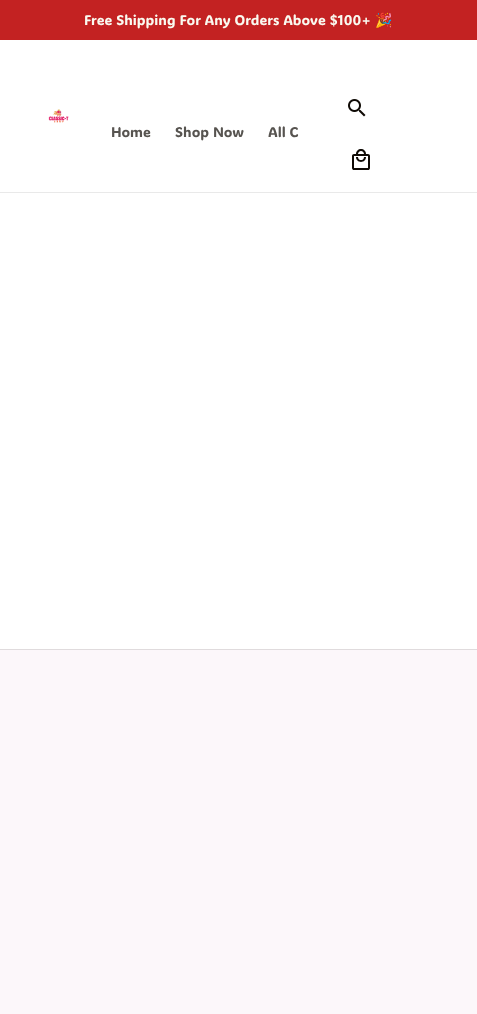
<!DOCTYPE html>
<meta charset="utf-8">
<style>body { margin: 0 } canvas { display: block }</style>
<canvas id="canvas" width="477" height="1014"></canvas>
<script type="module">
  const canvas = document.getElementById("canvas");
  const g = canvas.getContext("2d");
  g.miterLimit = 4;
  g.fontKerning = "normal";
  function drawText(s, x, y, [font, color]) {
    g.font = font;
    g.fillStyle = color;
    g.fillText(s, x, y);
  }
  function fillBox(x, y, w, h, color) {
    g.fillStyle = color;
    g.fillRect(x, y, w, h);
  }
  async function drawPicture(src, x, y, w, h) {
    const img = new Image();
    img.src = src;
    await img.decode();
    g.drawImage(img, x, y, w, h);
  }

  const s1 = ["14px ADLaM Display", "#FAFAF0"];
  const s2 = ["14px Noto Color Emoji", "#FAFAF0"];
  const s3 = ["14px ADLaM Display", "#575450"];

  fillBox(0, 0, 477, 1014, "#FFFFFF");
  fillBox(0, 0, 477, 40, "#C32222");
  drawText("Free Shipping For Any Orders Above $100+", 84, 25, s1);
  drawText("🎉", 375, 25, s2);
  fillBox(0, 192, 477, 1, "#E9E9E9");
  await drawPicture("pic1.png", 48, 109, 21, 14);
  await drawPicture("pic2.png", 348, 99, 18, 18);
  await drawPicture("pic3.png", 352, 149, 18, 21);
  drawText("Home", 111, 137, s3);
  drawText("Shop Now", 175, 137, s3);
  drawText("All C", 268, 137, s3);
  fillBox(0, 650, 477, 364, "#FCF7FA");
  fillBox(0, 649, 477, 1, "#E0DBDD");
</script>
